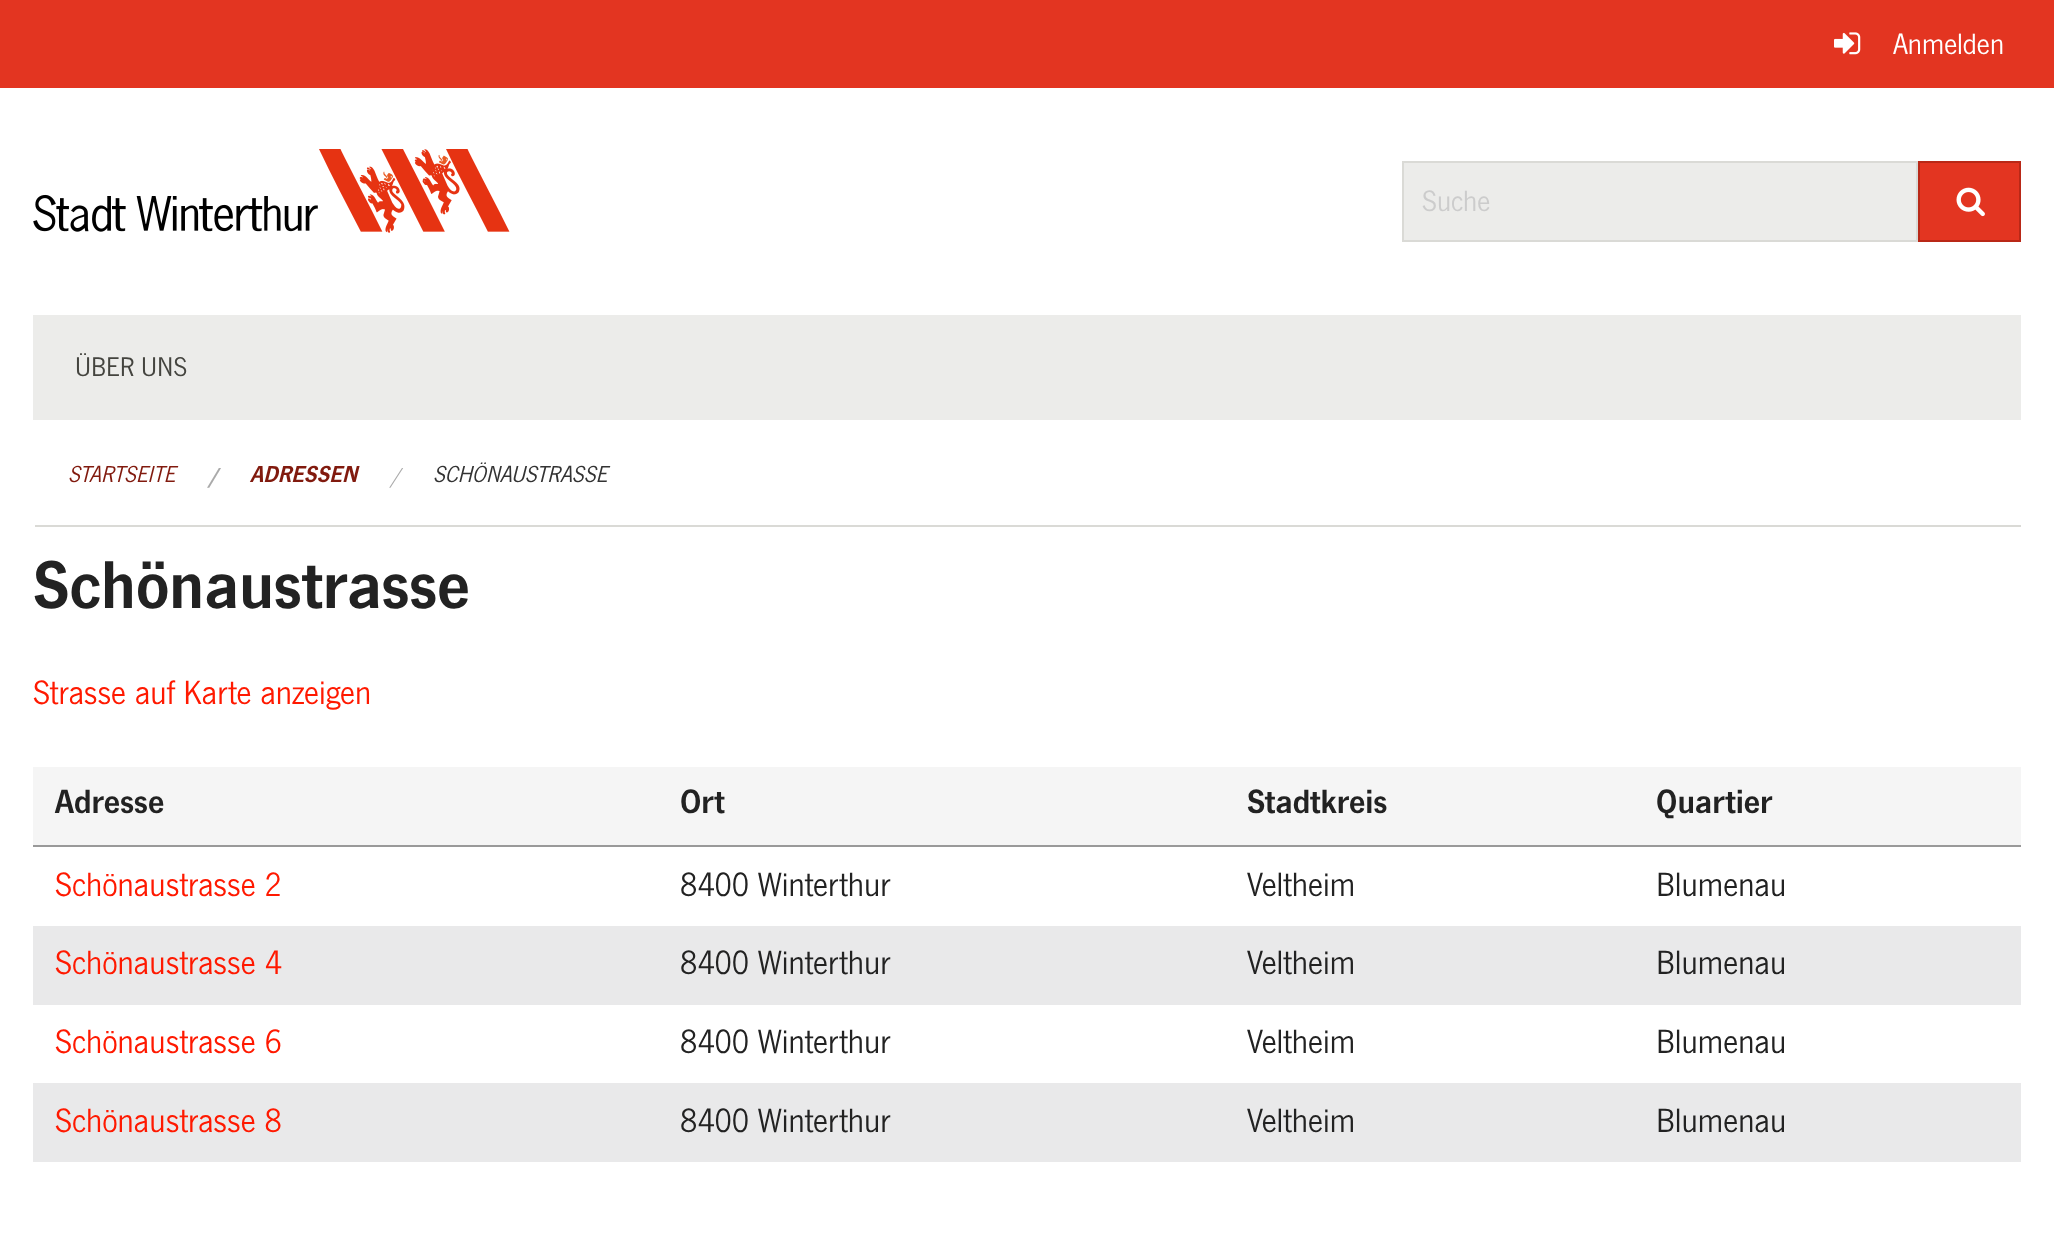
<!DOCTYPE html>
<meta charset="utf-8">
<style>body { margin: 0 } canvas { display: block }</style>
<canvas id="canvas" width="2054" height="1236"></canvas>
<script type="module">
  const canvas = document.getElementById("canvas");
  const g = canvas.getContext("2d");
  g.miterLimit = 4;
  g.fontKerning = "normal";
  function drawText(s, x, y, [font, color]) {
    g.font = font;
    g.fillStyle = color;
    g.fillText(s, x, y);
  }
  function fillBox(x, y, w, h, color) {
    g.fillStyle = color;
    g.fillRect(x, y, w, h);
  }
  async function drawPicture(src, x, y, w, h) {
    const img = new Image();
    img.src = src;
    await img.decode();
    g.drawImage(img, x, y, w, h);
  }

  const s1 = ["30.5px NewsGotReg", "#FFFFFF"];
  const s2 = ["30.5px NewsGotReg", "#CCCCCC"];
  const s3 = ["28px NewsGotReg", "#44443F"];
  const s4 = ["italic 24px NewsGotReg", "#811A0E"];
  const s5 = ["italic 24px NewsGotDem", "#AAAAAA"];
  const s6 = ["italic 24px NewsGotDem", "#811A0E"];
  const s7 = ["italic 24px NewsGotReg", "#AAAAAA"];
  const s8 = ["italic 24px NewsGotReg", "#333333"];
  const s9 = ["70px NewsGotDem", "#222222"];
  const s10 = ["35px NewsGotReg", "#FF1900"];
  const s11 = ["35px NewsGotDem", "#222222"];
  const s12 = ["35px NewsGotReg", "#222222"];

  fillBox(0, 0, 2054, 1236, "#FFFFFF");
  fillBox(0, 0, 2054, 88, "#E33521");
  await drawPicture("pic1.png", 1834, 32, 27, 23);
  drawText("Anmelden", 1893, 54, s1);
  await drawPicture("pic2.png", 33, 149, 477, 84);
  g.fillStyle = "#ECECEA";
  g.beginPath();
  g.rect(1403, 162, 514, 79);
  g.fill();
  g.strokeStyle = "#DADAD6";
  g.lineWidth = 2;
  g.stroke();
  drawText("Suche", 1422, 211, s2);
  g.fillStyle = "#E33521";
  g.beginPath();
  g.rect(1919, 162, 101, 79);
  g.fill();
  g.strokeStyle = "#B92817";
  g.stroke();
  await drawPicture("pic3.png", 1956, 187, 29, 30);
  fillBox(33, 315, 1988, 105, "#ECECEA");
  drawText("ÜBER UNS", 75, 376, s3);
  fillBox(35, 525, 1986, 2, "#DADAD6");
  drawText("STARTSEITE", 68, 482, s4);
  drawText("/", 208, 484, s5);
  drawText("ADRESSEN", 250, 482, s6);
  drawText("/", 390, 484, s7);
  drawText("SCHÖNAUSTRASSE", 433, 482, s8);
  drawText("Schönaustrasse", 33, 608, s9);
  drawText("Strasse auf Karte anzeigen", 33, 704, s10);
  fillBox(33, 767, 1988, 78, "#F5F5F5");
  fillBox(33, 845, 1988, 2, "#999999");
  drawText("Adresse", 55, 813, s11);
  drawText("Ort", 680, 813, s11);
  drawText("Stadtkreis", 1247, 813, s11);
  drawText("Quartier", 1656, 813, s11);
  drawText("Schönaustrasse 2", 55, 896, s10);
  drawText("8400 Winterthur", 680, 896, s12);
  drawText("Veltheim", 1247, 896, s12);
  drawText("Blumenau", 1656, 896, s12);
  fillBox(33, 926, 1988, 79, "#E9E9EA");
  drawText("Schönaustrasse 4", 55, 974, s10);
  drawText("8400 Winterthur", 680, 974, s12);
  drawText("Veltheim", 1247, 974, s12);
  drawText("Blumenau", 1656, 974, s12);
  drawText("Schönaustrasse 6", 55, 1053, s10);
  drawText("8400 Winterthur", 680, 1053, s12);
  drawText("Veltheim", 1247, 1053, s12);
  drawText("Blumenau", 1656, 1053, s12);
  fillBox(33, 1083, 1988, 79, "#E9E9EA");
  drawText("Schönaustrasse 8", 55, 1132, s10);
  drawText("8400 Winterthur", 680, 1132, s12);
  drawText("Veltheim", 1247, 1132, s12);
  drawText("Blumenau", 1656, 1132, s12);
</script>
